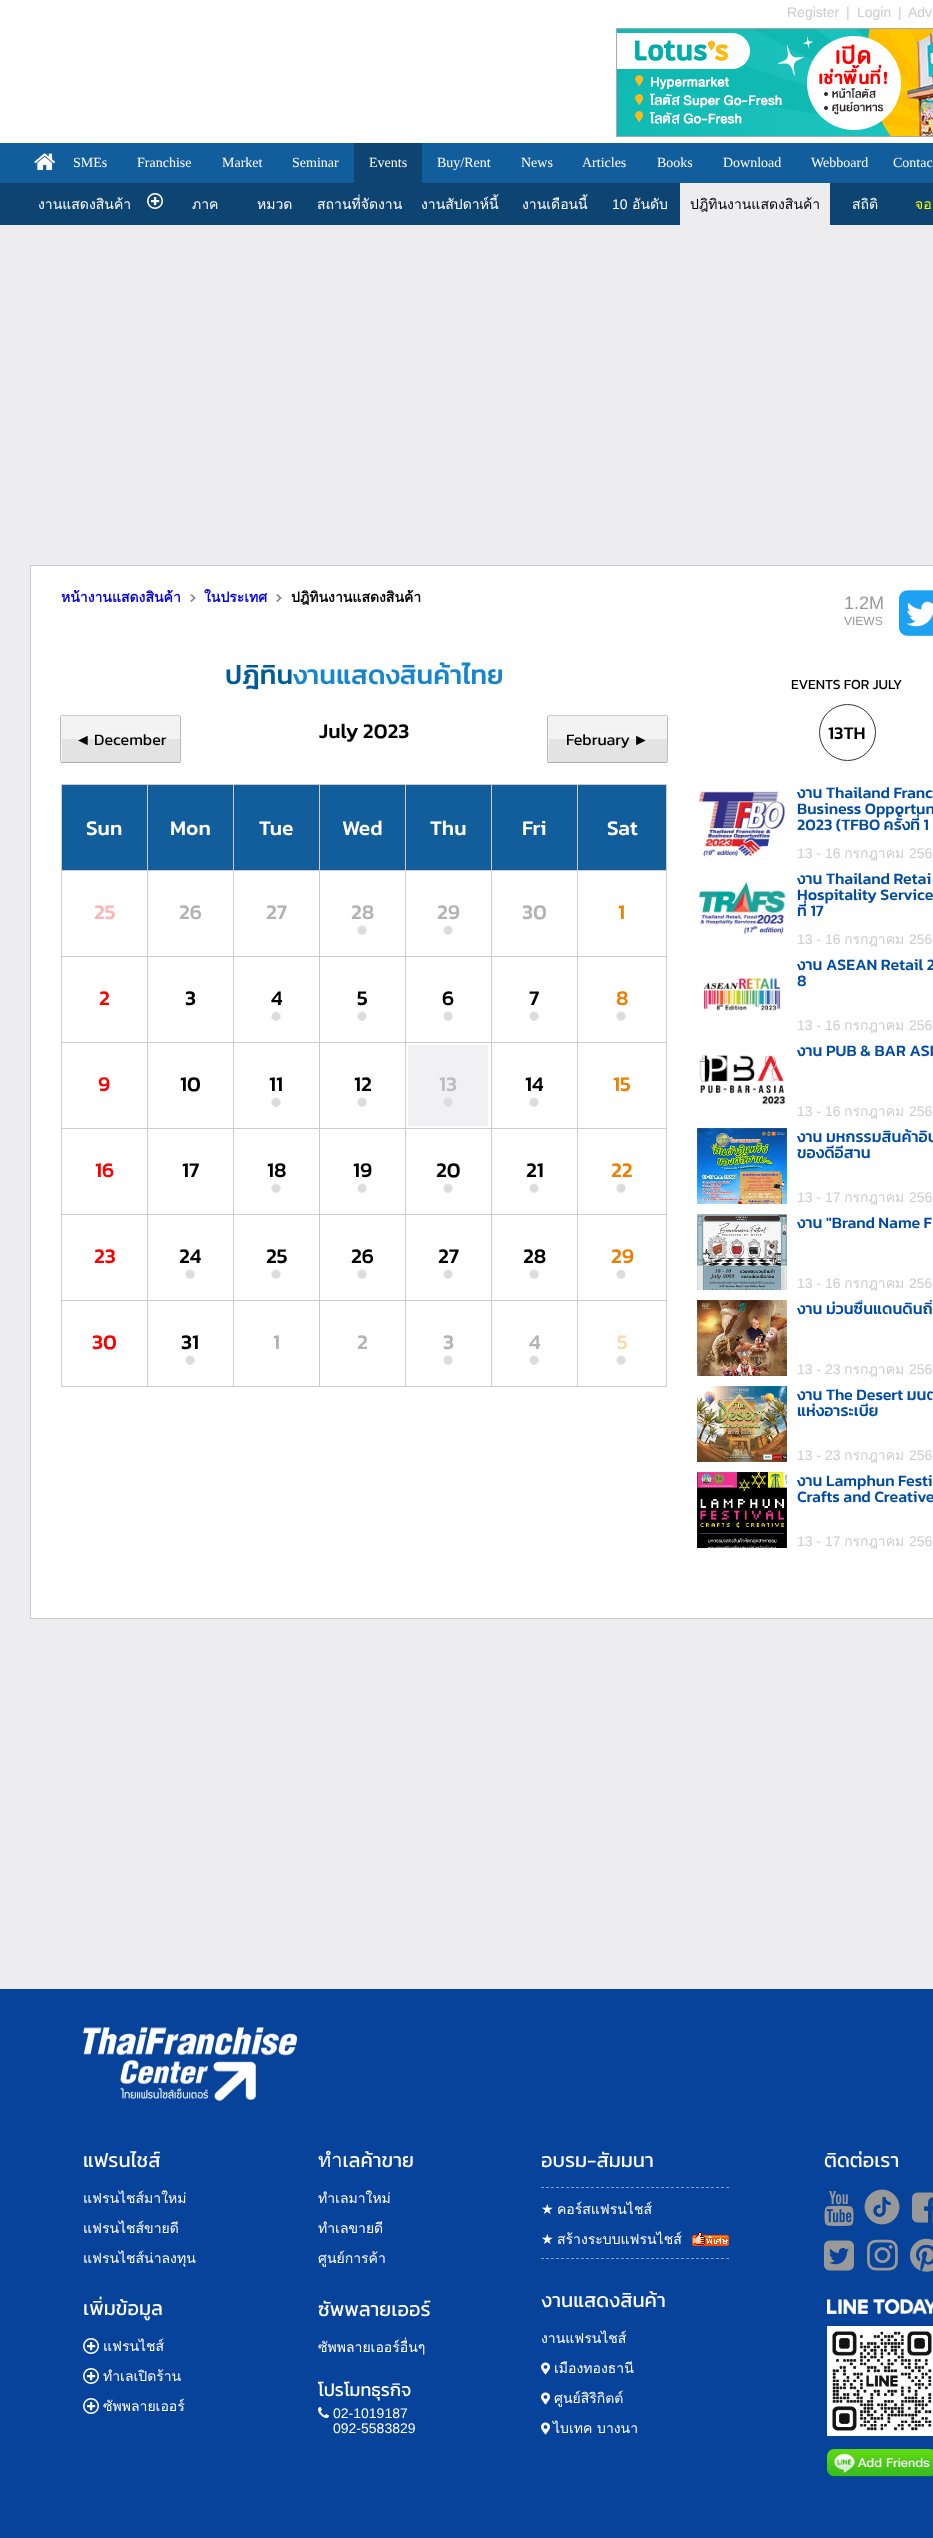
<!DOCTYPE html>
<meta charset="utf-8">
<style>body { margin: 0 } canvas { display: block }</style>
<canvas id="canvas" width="933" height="2538"></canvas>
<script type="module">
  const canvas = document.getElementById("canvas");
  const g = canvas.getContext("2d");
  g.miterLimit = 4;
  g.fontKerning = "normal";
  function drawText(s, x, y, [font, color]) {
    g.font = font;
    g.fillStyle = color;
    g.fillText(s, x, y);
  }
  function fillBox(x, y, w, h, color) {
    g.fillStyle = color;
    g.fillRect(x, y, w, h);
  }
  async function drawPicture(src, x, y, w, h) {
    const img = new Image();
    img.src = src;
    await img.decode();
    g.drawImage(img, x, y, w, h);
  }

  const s1 = ["14px Liberation Sans", "#CCCCCC"];
  const s2 = ["14px Liberation Serif", "#FFFFFF"];
  const s3 = ["14px Loma", "#FFFFFF"];
  const s4 = ["14px Liberation Sans", "#FFFFFF"];
  const s5 = ["14px Loma", "#000000"];
  const s6 = ["14px Loma", "#FFFF00"];
  const s7 = ["bold 14px Loma", "#0000EE"];
  const s8 = ["bold 14px Loma", "#000000"];
  const s9 = ["18px Liberation Sans", "#999999"];
  const s10 = ["12px Liberation Sans", "#999999"];
  const s11 = ["500 27px Kanit", "#005C98"];
  const s12 = ["500 27px Kanit", "#1685CE"];
  const s13 = ["16px Liberation Serif", "#000000"];
  const s14 = ["16px Kanit", "#000000"];
  const s15 = ["500 21px Kanit", "#000000"];
  const s16 = ["500 21px Kanit", "#FFFFFF"];
  const s17 = ["500 21px Kanit", "#FFB3B3"];
  const s18 = ["500 21px Kanit", "#B3B3B3"];
  const s19 = ["500 21px Kanit", "#ED8001"];
  const s20 = ["500 21px Kanit", "#FF0000"];
  const s21 = ["500 21px Kanit", "#BEBEC0"];
  const s22 = ["500 21px Kanit", "#FAD9B3"];
  const s23 = ["14px Kanit", "#000000"];
  const s24 = ["500 18px Kanit", "#000000"];
  const s25 = ["500 16px Kanit", "#014BA4"];
  const s26 = ["14px Loma", "#CCCCCC"];
  const s27 = ["20px Kanit", "#FFFFFF"];
  const s28 = ["18px Kanit", "#FFFFFF"];
  const s29 = ["14px DejaVu Sans", "#FFFFFF"];

  fillBox(0, 0, 933, 2538, "#FFFFFF");
  drawText("Register", 787, 17, s1);
  drawText("|", 846, 17, s1);
  drawText("Login", 857, 17, s1);
  drawText("|", 898, 17, s1);
  drawText("Adv", 908, 17, s1);
  await drawPicture("pic1.png", 616, 28, 317, 109);
  fillBox(0, 143, 933, 40, "#125D9B");
  await drawPicture("pic2.png", 34, 153, 21, 17);
  drawText("SMEs", 73, 167, s2);
  drawText("Franchise", 137, 167, s2);
  drawText("Market", 222, 167, s2);
  drawText("Seminar", 292, 167, s2);
  fillBox(354, 143, 68, 40, "#0D4472");
  drawText("Events", 369, 167, s2);
  drawText("Buy/Rent", 437, 167, s2);
  drawText("News", 521, 167, s2);
  drawText("Articles", 582, 167, s2);
  drawText("Books", 657, 167, s2);
  drawText("Download", 723, 167, s2);
  drawText("Webboard", 811, 167, s2);
  drawText("Contac", 893, 167, s2);
  fillBox(0, 183, 933, 42, "#0D4472");
  drawText("งานแสดงสินค้า", 38, 209, s3);
  await drawPicture("pic3.png", 147, 193, 16, 16);
  drawText("ภาค", 192, 209, s3);
  drawText("หมวด", 257, 209, s3);
  drawText("สถานที่จัดงาน", 317, 209, s3);
  drawText("งานสัปดาห์นี้", 421, 209, s3);
  drawText("งานเดือนนี้", 522, 209, s3);
  drawText("10", 612, 209, s4);
  drawText("อันดับ", 632, 209, s3);
  fillBox(680, 183, 150, 42, "#EDEDF0");
  drawText("ปฎิทินงานแสดงสินค้า", 690, 209, s5);
  drawText("สถิติ", 852, 209, s3);
  drawText("จอ", 915, 209, s6);
  fillBox(0, 225, 933, 340, "#EDEDF0");
  fillBox(0, 565, 30, 1054, "#EDEDF0");
  g.strokeStyle = "#CCCCCC";
  g.strokeRect(30.5, 565.5, 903, 1053);
  fillBox(408, 1045, 80, 81, "#F1F1F3");
  drawText("หน้างานแสดงสินค้า", 61, 602, s7);
  await drawPicture("pic4.png", 190, 594, 6, 8);
  drawText("ในประเทศ", 204, 602, s7);
  await drawPicture("pic4.png", 276, 594, 6, 8);
  drawText("ปฎิทินงานแสดงสินค้า", 291, 602, s8);
  drawText("1.2M", 844, 609, s9);
  drawText("VIEWS", 844, 625, s10);
  await drawPicture("pic5.png", 899, 590, 34, 46);
  drawText("ปฎิทิน", 225, 684, s11);
  drawText("งานแสดงสินค้าไทย", 293, 684, s12);
  fillBox(61, 716, 119, 46, "#F3F3F3");
  fillBox(61, 715, 119, 1, "#CCCCCC");
  fillBox(61, 762, 119, 1, "#AAAAAA");
  fillBox(180, 716, 1, 46, "#BBBBBB");
  fillBox(60, 716, 1, 46, "#BBBBBB");
  fillBox(62, 739, 118, 23, "rgba(68, 68, 68, 0.09)");
  fillBox(81, 734, 86, 5, "rgba(255, 255, 255, 0.09)");
  drawText("◄", 75, 745, s13);
  drawText("December", 94, 745, s14);
  drawText("July 2023", 319, 738, s15);
  fillBox(548, 716, 119, 46, "#F3F3F3");
  fillBox(548, 715, 119, 1, "#CCCCCC");
  fillBox(548, 762, 119, 1, "#AAAAAA");
  fillBox(667, 716, 1, 46, "#BBBBBB");
  fillBox(547, 716, 1, 46, "#BBBBBB");
  fillBox(549, 739, 118, 23, "rgba(68, 68, 68, 0.09)");
  fillBox(566, 734, 77, 5, "rgba(255, 255, 255, 0.09)");
  drawText("February", 566, 745, s14);
  drawText("►", 633, 745, s13);
  fillBox(62, 785, 85, 85, "#125D9B");
  fillBox(61, 784, 516, 1, "#CCCCCC");
  fillBox(61, 870, 516, 1, "#CCCCCC");
  fillBox(61, 784, 1, 172, "#CCCCCC");
  drawText("Sun", 86, 835, s16);
  fillBox(148, 785, 85, 85, "#125D9B");
  fillBox(147, 784, 1, 172, "#CCCCCC");
  drawText("Mon", 170, 835, s16);
  fillBox(234, 785, 85, 85, "#125D9B");
  fillBox(233, 784, 1, 172, "#CCCCCC");
  drawText("Tue", 259, 835, s16);
  fillBox(320, 785, 85, 85, "#125D9B");
  fillBox(319, 784, 1, 172, "#CCCCCC");
  drawText("Wed", 342, 835, s16);
  fillBox(406, 785, 85, 85, "#125D9B");
  fillBox(405, 784, 1, 172, "#CCCCCC");
  drawText("Thu", 430, 835, s16);
  fillBox(492, 785, 85, 85, "#125D9B");
  fillBox(491, 784, 1, 172, "#CCCCCC");
  drawText("Fri", 522, 835, s16);
  g.fillStyle = "#125D9B";
  g.beginPath();
  g.rect(577.5, 784.5, 89, 86);
  g.fill();
  g.stroke();
  drawText("Sat", 607, 835, s16);
  drawText("25", 94, 919, s17);
  drawText("26", 179, 919, s18);
  drawText("27", 266, 919, s18);
  drawText("28", 351, 919, s18);
  drawText("29", 437, 919, s18);
  drawText("30", 522, 919, s18);
  fillBox(666, 871, 1, 85, "#CCCCCC");
  fillBox(577, 871, 1, 85, "#CCCCCC");
  drawText("1", 618, 919, s19);
  fillBox(61, 956, 606, 1, "#CCCCCC");
  fillBox(61, 956, 1, 86, "#CCCCCC");
  drawText("2", 99, 1005, s20);
  fillBox(147, 956, 1, 86, "#CCCCCC");
  drawText("3", 185, 1005, s15);
  fillBox(233, 956, 1, 86, "#CCCCCC");
  drawText("4", 271, 1005, s15);
  fillBox(319, 956, 1, 86, "#CCCCCC");
  drawText("5", 357, 1005, s15);
  fillBox(405, 956, 1, 86, "#CCCCCC");
  drawText("6", 442, 1005, s15);
  fillBox(491, 956, 1, 86, "#CCCCCC");
  drawText("7", 529, 1005, s15);
  fillBox(666, 956, 1, 86, "#CCCCCC");
  fillBox(577, 956, 1, 86, "#CCCCCC");
  drawText("8", 616, 1005, s19);
  fillBox(61, 1042, 606, 1, "#CCCCCC");
  fillBox(61, 1042, 1, 86, "#CCCCCC");
  drawText("9", 98, 1091, s20);
  fillBox(147, 1042, 1, 86, "#CCCCCC");
  drawText("10", 180, 1091, s15);
  fillBox(233, 1042, 1, 86, "#CCCCCC");
  drawText("11", 269, 1091, s15);
  fillBox(319, 1042, 1, 86, "#CCCCCC");
  drawText("12", 354, 1091, s15);
  fillBox(405, 1042, 1, 86, "#CCCCCC");
  drawText("13", 439, 1091, s21);
  fillBox(491, 1042, 1, 86, "#CCCCCC");
  drawText("14", 525, 1091, s15);
  fillBox(666, 1042, 1, 86, "#CCCCCC");
  fillBox(577, 1042, 1, 86, "#CCCCCC");
  drawText("15", 613, 1091, s19);
  fillBox(61, 1128, 606, 1, "#CCCCCC");
  fillBox(61, 1128, 1, 86, "#CCCCCC");
  drawText("16", 95, 1177, s20);
  fillBox(147, 1128, 1, 86, "#CCCCCC");
  drawText("17", 182, 1177, s15);
  fillBox(233, 1128, 1, 86, "#CCCCCC");
  drawText("18", 267, 1177, s15);
  fillBox(319, 1128, 1, 86, "#CCCCCC");
  drawText("19", 353, 1177, s15);
  fillBox(405, 1128, 1, 86, "#CCCCCC");
  drawText("20", 436, 1177, s15);
  fillBox(491, 1128, 1, 86, "#CCCCCC");
  drawText("21", 526, 1177, s15);
  fillBox(666, 1128, 1, 86, "#CCCCCC");
  fillBox(577, 1128, 1, 86, "#CCCCCC");
  drawText("22", 611, 1177, s19);
  fillBox(61, 1214, 606, 1, "#CCCCCC");
  fillBox(61, 1214, 1, 86, "#CCCCCC");
  drawText("23", 94, 1263, s20);
  fillBox(147, 1214, 1, 86, "#CCCCCC");
  drawText("24", 179, 1263, s15);
  fillBox(233, 1214, 1, 86, "#CCCCCC");
  drawText("25", 266, 1263, s15);
  fillBox(319, 1214, 1, 86, "#CCCCCC");
  drawText("26", 351, 1263, s15);
  fillBox(405, 1214, 1, 86, "#CCCCCC");
  drawText("27", 438, 1263, s15);
  fillBox(491, 1214, 1, 86, "#CCCCCC");
  drawText("28", 523, 1263, s15);
  fillBox(666, 1214, 1, 86, "#CCCCCC");
  fillBox(577, 1214, 1, 86, "#CCCCCC");
  drawText("29", 611, 1263, s19);
  fillBox(61, 1300, 516, 1, "#CCCCCC");
  fillBox(61, 1386, 516, 1, "#CCCCCC");
  fillBox(61, 1300, 1, 87, "#CCCCCC");
  drawText("30", 92, 1349, s20);
  fillBox(147, 1300, 1, 87, "#CCCCCC");
  drawText("31", 181, 1349, s15);
  fillBox(233, 1300, 1, 87, "#CCCCCC");
  drawText("1", 273, 1349, s18);
  fillBox(319, 1300, 1, 87, "#CCCCCC");
  drawText("2", 357, 1349, s18);
  fillBox(405, 1300, 1, 87, "#CCCCCC");
  drawText("3", 443, 1349, s18);
  fillBox(491, 1300, 1, 87, "#CCCCCC");
  drawText("4", 529, 1349, s18);
  g.strokeRect(577.5, 1300.5, 89, 86);
  drawText("5", 617, 1349, s22);
  await drawPicture("pic6.png", 357, 925, 10, 10);
  await drawPicture("pic6.png", 443, 925, 10, 10);
  await drawPicture("pic6.png", 271, 1011, 10, 10);
  await drawPicture("pic6.png", 357, 1011, 10, 10);
  await drawPicture("pic6.png", 443, 1011, 10, 10);
  await drawPicture("pic6.png", 529, 1011, 10, 10);
  await drawPicture("pic7.png", 616, 1011, 10, 10);
  await drawPicture("pic6.png", 271, 1097, 10, 10);
  await drawPicture("pic6.png", 357, 1097, 10, 10);
  await drawPicture("pic8.png", 443, 1097, 10, 10);
  await drawPicture("pic6.png", 529, 1097, 10, 10);
  await drawPicture("pic6.png", 271, 1183, 10, 10);
  await drawPicture("pic6.png", 357, 1183, 10, 10);
  await drawPicture("pic6.png", 443, 1183, 10, 10);
  await drawPicture("pic6.png", 529, 1183, 10, 10);
  await drawPicture("pic7.png", 616, 1183, 10, 10);
  await drawPicture("pic6.png", 185, 1269, 10, 10);
  await drawPicture("pic6.png", 271, 1269, 10, 10);
  await drawPicture("pic6.png", 357, 1269, 10, 10);
  await drawPicture("pic6.png", 443, 1269, 10, 10);
  await drawPicture("pic6.png", 529, 1269, 10, 10);
  await drawPicture("pic7.png", 616, 1269, 10, 10);
  await drawPicture("pic6.png", 185, 1355, 10, 10);
  await drawPicture("pic6.png", 443, 1355, 10, 10);
  await drawPicture("pic6.png", 529, 1355, 10, 10);
  await drawPicture("pic7.png", 616, 1355, 10, 10);
  drawText("EVENTS FOR JULY", 791, 689, s23);
  g.beginPath();
  g.arc(847.5, 732.5, 28, 0, Math.PI * 2);
  g.strokeStyle = "#333333";
  g.stroke();
  drawText("13TH", 828, 739, s24);
  await drawPicture("pic9.png", 697, 790, 89, 67);
  drawText("งาน Thailand Franc", 797, 798, s25);
  drawText("Business Opportun", 797, 814, s25);
  drawText("2023 (TFBO ครั้งที่ 1", 797, 830, s25);
  drawText("13 - 16", 797, 858, s1);
  drawText("กรกฎาคม", 844, 858, s26);
  drawText("256", 909, 858, s1);
  await drawPicture("pic10.png", 698, 881, 88, 54);
  drawText("งาน Thailand Retai", 797, 884, s25);
  drawText("Hospitality Service", 797, 900, s25);
  g.save();
  g.beginPath();
  g.rect(797, 870, 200, 50);
  g.clip();
  drawText("ที่ 17", 797, 916, s25);
  g.restore();
  drawText("13 - 16", 797, 944, s1);
  drawText("กรกฎาคม", 844, 944, s26);
  drawText("256", 909, 944, s1);
  await drawPicture("pic11.png", 703, 978, 78, 33);
  drawText("งาน ASEAN Retail 2", 797, 970, s25);
  drawText("8", 797, 986, s25);
  drawText("13 - 16", 797, 1030, s1);
  drawText("กรกฎาคม", 844, 1030, s26);
  drawText("256", 909, 1030, s1);
  await drawPicture("pic12.png", 699, 1055, 87, 50);
  drawText("งาน PUB & BAR ASI", 797, 1056, s25);
  drawText("13 - 16", 797, 1116, s1);
  drawText("กรกฎาคม", 844, 1116, s26);
  drawText("256", 909, 1116, s1);
  await drawPicture("pic13.png", 697, 1128, 90, 76);
  drawText("งาน มหกรรมสินค้าอิน", 797, 1142, s25);
  drawText("ของดีอีสาน", 797, 1158, s25);
  drawText("13 - 17", 797, 1202, s1);
  drawText("กรกฎาคม", 844, 1202, s26);
  drawText("256", 909, 1202, s1);
  await drawPicture("pic14.png", 697, 1214, 90, 76);
  drawText("งาน \"Brand Name F", 797, 1228, s25);
  drawText("13 - 16", 797, 1288, s1);
  drawText("กรกฎาคม", 844, 1288, s26);
  drawText("256", 909, 1288, s1);
  await drawPicture("pic15.png", 697, 1300, 90, 76);
  g.save();
  g.beginPath();
  g.rect(797, 1300, 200, 50);
  g.clip();
  drawText("งาน ม่วนซื่นแดนดินถิ่", 797, 1314, s25);
  g.restore();
  drawText("13 - 23", 797, 1374, s1);
  drawText("กรกฎาคม", 844, 1374, s26);
  drawText("256", 909, 1374, s1);
  await drawPicture("pic16.png", 697, 1386, 90, 76);
  drawText("งาน The Desert มนต", 797, 1400, s25);
  drawText("แห่งอาระเบีย", 797, 1416, s25);
  drawText("13 - 23", 797, 1460, s1);
  drawText("กรกฎาคม", 844, 1460, s26);
  drawText("256", 909, 1460, s1);
  await drawPicture("pic17.png", 697, 1472, 90, 76);
  drawText("งาน Lamphun Festi", 797, 1486, s25);
  drawText("Crafts and Creative", 797, 1502, s25);
  drawText("13 - 17", 797, 1546, s1);
  drawText("กรกฎาคม", 844, 1546, s26);
  drawText("256", 909, 1546, s1);
  fillBox(0, 1619, 933, 340, "#EDEDF0");
  fillBox(0, 1959, 933, 30, "#EDEDF0");
  fillBox(0, 1989, 933, 549, "#08439B");
  await drawPicture("pic18.png", 83, 2027, 214, 74);
  drawText("แฟรนไชส์", 83, 2167, s27);
  drawText("แฟรนไชส์มาใหม่", 83, 2203, s3);
  drawText("แฟรนไชส์ขายดี", 83, 2233, s3);
  drawText("แฟรนไชส์น่าลงทุน", 83, 2263, s3);
  drawText("เพิ่มข้อมูล", 83, 2315, s27);
  await drawPicture("pic19.png", 83, 2338, 16, 16);
  drawText("แฟรนไชส์", 103, 2351, s3);
  await drawPicture("pic19.png", 83, 2368, 16, 16);
  drawText("ทำเลเปิดร้าน", 103, 2381, s3);
  await drawPicture("pic19.png", 83, 2398, 16, 16);
  drawText("ซัพพลายเออร์", 103, 2411, s3);
  drawText("ทำเลค้าขาย", 318, 2167, s27);
  drawText("ทำเลมาใหม่", 318, 2203, s3);
  drawText("ทำเลขายดี", 318, 2233, s3);
  drawText("ศูนย์การค้า", 318, 2263, s3);
  drawText("ซัพพลายเออร์", 318, 2316, s27);
  drawText("ซัพพลายเออร์อื่นๆ", 318, 2352, s3);
  drawText("โปรโมทธุรกิจ", 318, 2396, s28);
  await drawPicture("pic20.png", 318, 2407, 11, 11);
  drawText("02-1019187", 333, 2418, s4);
  drawText("092-5583829", 333, 2433, s4);
  drawText("อบรม-สัมมนา", 541, 2167, s27);
  g.beginPath();
  g.moveTo(541, 2187.5);
  g.lineTo(729, 2187.5);
  g.strokeStyle = "#84A1CD";
  g.setLineDash([3, 2]);
  g.stroke();
  drawText("★", 541, 2214, s29);
  drawText("คอร์สแฟรนไชส์", 557, 2214, s3);
  drawText("★", 541, 2244, s29);
  drawText("สร้างระบบแฟรนไชส์", 557, 2244, s3);
  await drawPicture("pic21.png", 692, 2232, 37, 14);
  g.beginPath();
  g.moveTo(541, 2258.5);
  g.lineTo(729, 2258.5);
  g.stroke();
  drawText("งานแสดงสินค้า", 541, 2307, s27);
  drawText("งานแฟรนไชส์", 541, 2343, s3);
  await drawPicture("pic22.png", 541, 2362, 9, 13);
  drawText("เมืองทองธานี", 554, 2373, s3);
  await drawPicture("pic22.png", 541, 2392, 9, 13);
  drawText("ศูนย์สิริกิตต์", 554, 2403, s3);
  await drawPicture("pic22.png", 541, 2422, 9, 13);
  drawText("ไบเทค บางนา", 553, 2433, s3);
  drawText("ติดต่อเรา", 824, 2167, s27);
  await drawPicture("pic23.png", 824, 2191, 30, 35);
  await drawPicture("pic24.png", 864, 2189, 36, 36);
  await drawPicture("pic25.png", 912, 2192, 21, 31);
  await drawPicture("pic26.png", 824, 2240, 30, 31);
  await drawPicture("pic27.png", 867, 2239, 31, 32);
  await drawPicture("pic28.png", 910, 2238, 23, 34);
  await drawPicture("pic29.png", 827, 2299, 106, 15);
  await drawPicture("pic30.png", 827, 2326, 106, 110);
  await drawPicture("pic31.png", 827, 2449, 106, 28);
</script>
